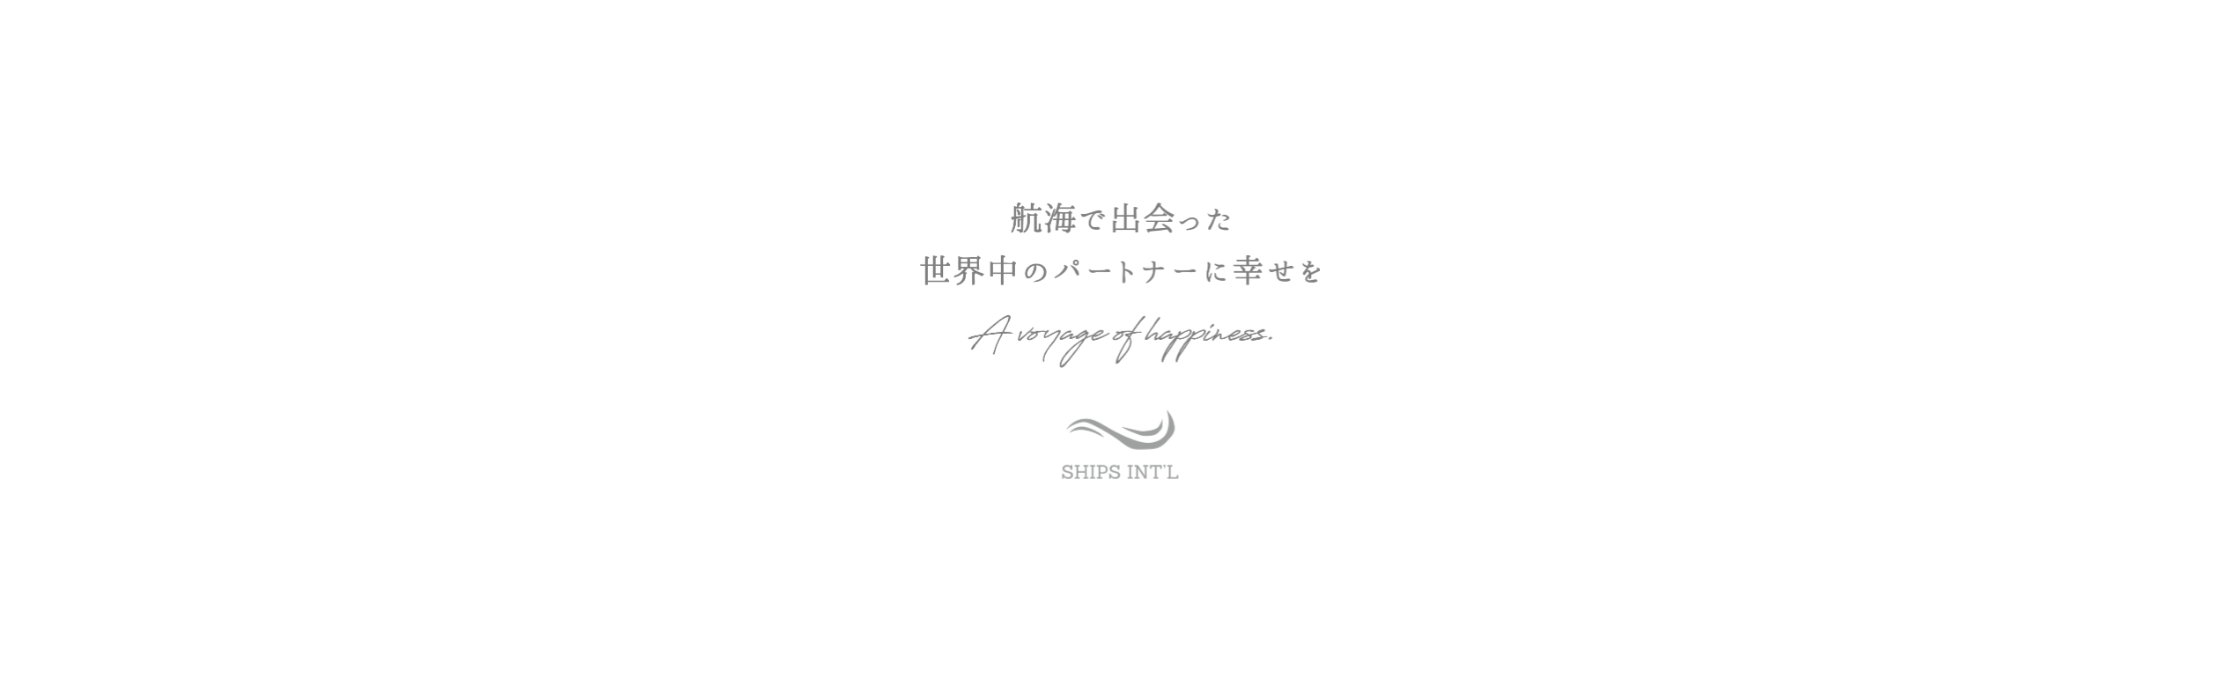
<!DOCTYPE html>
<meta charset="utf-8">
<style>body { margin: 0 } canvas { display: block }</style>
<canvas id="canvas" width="2239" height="680"></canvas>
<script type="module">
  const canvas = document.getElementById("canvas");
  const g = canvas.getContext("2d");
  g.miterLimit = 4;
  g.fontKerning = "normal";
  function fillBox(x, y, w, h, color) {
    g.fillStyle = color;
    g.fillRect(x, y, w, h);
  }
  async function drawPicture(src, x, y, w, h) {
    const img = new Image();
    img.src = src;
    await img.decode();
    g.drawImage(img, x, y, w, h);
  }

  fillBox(0, 0, 2239, 680, "#FFFFFF");
  await drawPicture("pic1.png", 920, 202, 400, 277);
</script>
